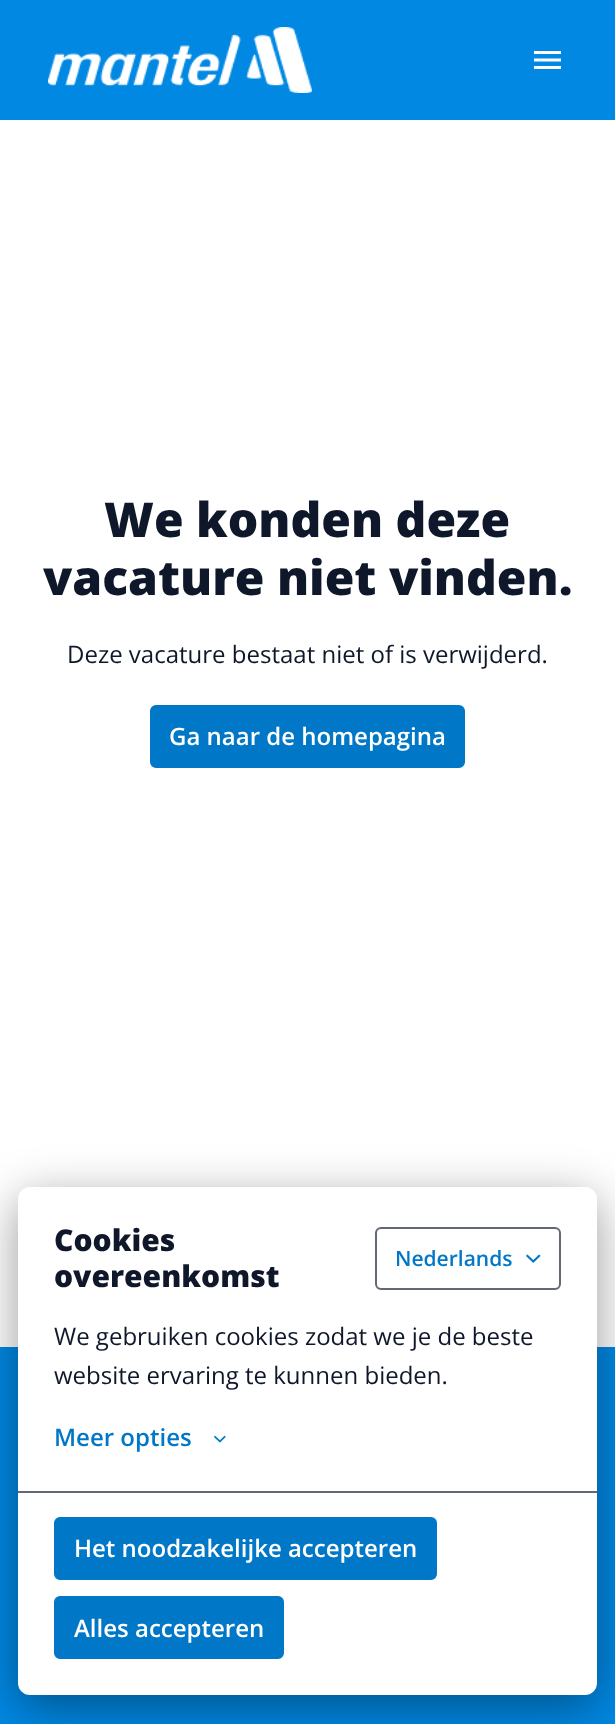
<!DOCTYPE html>
<meta charset="utf-8">
<style>body { margin: 0 } canvas { display: block }</style>
<canvas id="canvas" width="615" height="1724"></canvas>
<script type="module">
  const canvas = document.getElementById("canvas");
  const g = canvas.getContext("2d");
  g.miterLimit = 4;
  g.fontKerning = "normal";
  function drawText(s, x, y, [font, color]) {
    g.font = font;
    g.fillStyle = color;
    g.fillText(s, x, y);
  }
  function fillBox(x, y, w, h, color) {
    g.fillStyle = color;
    g.fillRect(x, y, w, h);
  }
  function fillRounded(x, y, w, h, r, color) {
    g.fillStyle = color;
    g.beginPath();
    g.roundRect(x, y, w, h, r);
    g.fill();
  }
  async function drawPicture(src, x, y, w, h) {
    const img = new Image();
    img.src = src;
    await img.decode();
    g.drawImage(img, x, y, w, h);
  }

  const s1 = ["800 48px Open Sans", "#0F172A"];
  const s2 = ["24px Open Sans", "#0F172A"];
  const s3 = ["600 24px Open Sans", "#FFFFFF"];
  const s4 = ["800 30px Open Sans", "#0F172A"];
  const s5 = ["600 21px Open Sans", "#0077C7"];
  const s6 = ["600 24px Open Sans", "#0077C7"];

  fillBox(0, 0, 615, 1724, "#FFFFFF");
  fillBox(0, 0, 615, 120, "#0088E3");
  await drawPicture("pic1.png", 48, 27, 264, 66);
  await drawPicture("pic2.png", 534, 51, 27, 18);
  drawText("We konden deze", 104, 537, s1);
  drawText("vacature niet vinden.", 43, 595, s1);
  drawText("Deze vacature bestaat niet of is verwijderd.", 67, 663, s2);
  g.fillStyle = "#0077C7";
  g.beginPath();
  g.roundRect(151, 706, 313, 61, 5);
  g.fill();
  g.strokeStyle = "#0077C7";
  g.lineWidth = 2;
  g.stroke();
  drawText("Ga naar de homepagina", 169, 745, s3);
  fillBox(0, 1347, 615, 377, "#0088E3");
  g.fillStyle = "rgba(0, 0, 0, 0.4)";
  g.filter = "blur(24px)";
  g.beginPath();
  g.roundRect(18, 1199, 579, 508, 12);
  g.fill();
  g.filter = "none";
  fillRounded(18, 1187, 579, 508, 12, "#FFFFFF");
  drawText("Cookies", 54, 1251, s4);
  drawText("overeenkomst", 54, 1287, s4);
  g.beginPath();
  g.roundRect(376, 1228, 184, 61, 5);
  g.strokeStyle = "#636875";
  g.stroke();
  drawText("Nederlands", 395, 1266, s5);
  await drawPicture("pic3.png", 526, 1254, 15, 9);
  drawText("We gebruiken cookies zodat we je de beste", 54, 1345, s2);
  drawText("website ervaring te kunnen bieden.", 54, 1384, s2);
  drawText("Meer opties", 54, 1446, s6);
  await drawPicture("pic4.png", 214, 1435, 12, 8);
  fillBox(18, 1491, 579, 2, "#636875");
  g.fillStyle = "#0077C7";
  g.beginPath();
  g.roundRect(55, 1518, 381, 61, 5);
  g.fill();
  g.strokeStyle = "#0077C7";
  g.stroke();
  drawText("Het noodzakelijke accepteren", 74, 1557, s3);
  g.fillStyle = "#0077C7";
  g.beginPath();
  g.roundRect(55, 1597, 228, 61, 5);
  g.fill();
  g.stroke();
  drawText("Alles accepteren", 74, 1637, s3);
</script>
